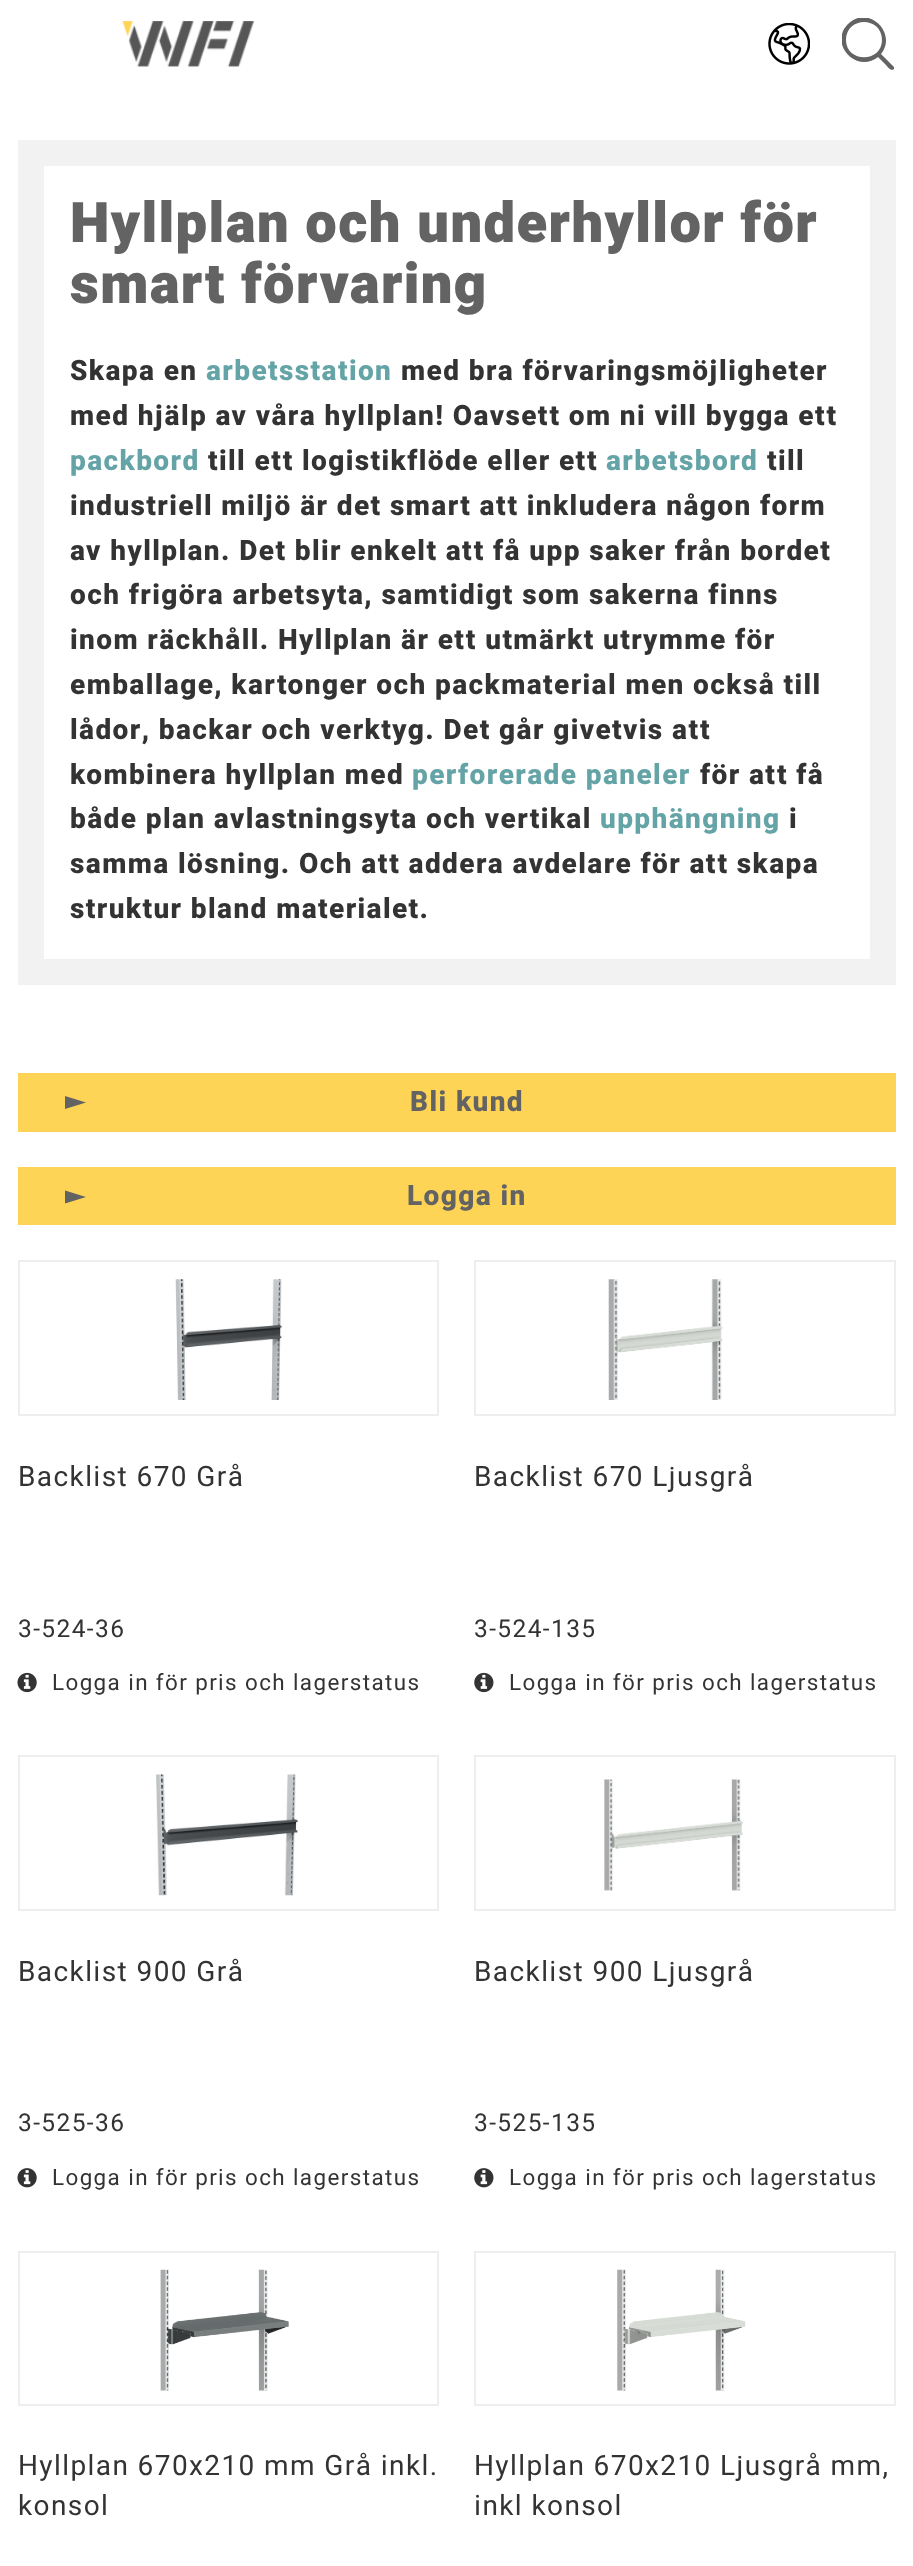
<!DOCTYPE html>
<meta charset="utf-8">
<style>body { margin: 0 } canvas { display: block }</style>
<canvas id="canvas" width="913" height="2566"></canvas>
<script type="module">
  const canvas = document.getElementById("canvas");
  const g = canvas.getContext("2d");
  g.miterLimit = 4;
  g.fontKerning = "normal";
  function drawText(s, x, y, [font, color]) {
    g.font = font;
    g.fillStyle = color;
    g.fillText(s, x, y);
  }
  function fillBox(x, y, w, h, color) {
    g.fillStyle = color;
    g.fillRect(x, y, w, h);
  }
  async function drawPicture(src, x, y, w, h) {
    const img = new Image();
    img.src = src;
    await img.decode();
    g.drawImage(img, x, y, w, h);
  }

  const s1 = ["900 56px Heebo", "#646363"];
  const s2 = ["800 28px Heebo", "#333333"];
  const s3 = ["800 28px Heebo", "#64A3A6"];
  const s4 = ["800 28px Heebo", "#646363"];
  const s5 = ["28px Heebo", "#333333"];
  const s6 = ["24.5px Heebo", "#333333"];
  const s7 = ["22.4px Heebo", "#333333"];

  fillBox(0, 0, 913, 2566, "#FFFFFF");
  await drawPicture("pic1.png", 122, 21, 132, 46);
  await drawPicture("pic2.png", 768, 23, 42, 42);
  g.save();
  g.beginPath();
  g.rect(842, 18, 52, 52);
  g.clip();
  g.fillStyle = "#646363";
  g.beginPath();
  g.moveTo(894, 67);
  g.lineTo(881, 54);
  g.bezierCurveTo(898, 33, 868, 4, 848, 24);
  g.bezierCurveTo(828, 44, 857, 74, 878, 57);
  g.lineTo(886, 65);
  g.bezierCurveTo(887, 66, 891, 72, 894, 69);
  g.bezierCurveTo(894, 69, 894, 67, 894, 67);
  g.closePath();
  g.moveTo(846, 40);
  g.bezierCurveTo(846, 16, 882, 16, 882, 40);
  g.bezierCurveTo(882, 63, 846, 63, 846, 40);
  g.closePath();
  g.fill();
  g.restore();
  fillBox(18, 140, 878, 845, "#F2F2F2");
  fillBox(44, 166, 826, 793, "#FFFFFF");
  g.letterSpacing = "1.4px";
  drawText("Hyllplan och underhyllor för", 70, 242, s1);
  drawText("smart förvaring", 70, 303, s1);
  drawText("Skapa en", 70, 380, s2);
  drawText("arbetsstation", 206, 380, s3);
  drawText("med bra förvaringsmöjligheter", 401, 380, s2);
  drawText("med hjälp av våra hyllplan! Oavsett om ni vill bygga ett", 70, 425, s2);
  drawText("packbord", 70, 470, s3);
  drawText("till ett logistikflöde eller ett", 208, 470, s2);
  drawText("arbetsbord", 606, 470, s3);
  drawText("till", 767, 470, s2);
  drawText("industriell miljö är det smart att inkludera någon form", 70, 515, s2);
  drawText("av hyllplan. Det blir enkelt att få upp saker från bordet", 70, 560, s2);
  drawText("och frigöra arbetsyta, samtidigt som sakerna finns", 70, 604, s2);
  drawText("inom räckhåll. Hyllplan är ett utmärkt utrymme för", 70, 649, s2);
  drawText("emballage, kartonger och packmaterial men också till", 70, 694, s2);
  drawText("lådor, backar och verktyg. Det går givetvis att", 70, 739, s2);
  drawText("kombinera hyllplan med", 70, 784, s2);
  drawText("perforerade paneler", 412, 784, s3);
  drawText("för att få", 700, 784, s2);
  drawText("både plan avlastningsyta och vertikal", 70, 828, s2);
  drawText("upphängning", 600, 828, s3);
  drawText("i", 789, 828, s2);
  drawText("samma lösning. Och att addera avdelare för att skapa", 70, 873, s2);
  drawText("struktur bland materialet.", 70, 918, s2);
  fillBox(18, 1073, 878, 59, "#FED456");
  g.fillStyle = "#646363";
  g.beginPath();
  g.moveTo(65, 1109);
  g.lineTo(86, 1102.5);
  g.lineTo(65, 1096);
  g.closePath();
  g.fill();
  drawText("Bli kund", 410, 1111, s4);
  fillBox(18, 1167, 878, 58, "#FED456");
  g.fillStyle = "#646363";
  g.beginPath();
  g.moveTo(65, 1203.5);
  g.lineTo(86, 1197);
  g.lineTo(65, 1190.5);
  g.closePath();
  g.fill();
  drawText("Logga in", 407, 1205, s4);
  g.strokeStyle = "#EEEEEE";
  g.lineWidth = 2;
  g.strokeRect(19, 1261, 419, 154);
  await drawPicture("pic3.png", 175, 1279, 107, 121);
  drawText("Backlist 670 Grå", 18, 1486, s5);
  drawText("3-524-36", 18, 1637, s6);
  await drawPicture("pic4.png", 17, 1672, 20, 21);
  drawText("Logga in för pris och lagerstatus", 52, 1690, s7);
  g.strokeRect(475, 1261, 420, 154);
  await drawPicture("pic5.png", 608, 1279, 115, 121);
  drawText("Backlist 670 Ljusgrå", 474, 1486, s5);
  drawText("3-524-135", 474, 1637, s6);
  await drawPicture("pic6.png", 474, 1672, 20, 21);
  drawText("Logga in för pris och lagerstatus", 509, 1690, s7);
  g.strokeRect(19, 1756, 419, 154);
  await drawPicture("pic7.png", 156, 1774, 142, 122);
  drawText("Backlist 900 Grå", 18, 1981, s5);
  drawText("3-525-36", 18, 2131, s6);
  await drawPicture("pic8.png", 17, 2168, 20, 20);
  drawText("Logga in för pris och lagerstatus", 52, 2185, s7);
  g.strokeRect(475, 1756, 420, 154);
  await drawPicture("pic9.png", 604, 1779, 139, 112);
  drawText("Backlist 900 Ljusgrå", 474, 1981, s5);
  drawText("3-525-135", 474, 2131, s6);
  await drawPicture("pic10.png", 474, 2168, 20, 20);
  drawText("Logga in för pris och lagerstatus", 509, 2185, s7);
  g.strokeRect(19, 2252, 419, 153);
  await drawPicture("pic11.png", 160, 2269, 129, 122);
  drawText("Hyllplan 670x210 mm Grå inkl.", 18, 2475, s5);
  drawText("konsol", 18, 2515, s5);
  g.strokeRect(475, 2252, 420, 153);
  await drawPicture("pic12.png", 617, 2269, 129, 122);
  drawText("Hyllplan 670x210 Ljusgrå mm,", 474, 2475, s5);
  drawText("inkl konsol", 474, 2515, s5);
</script>
